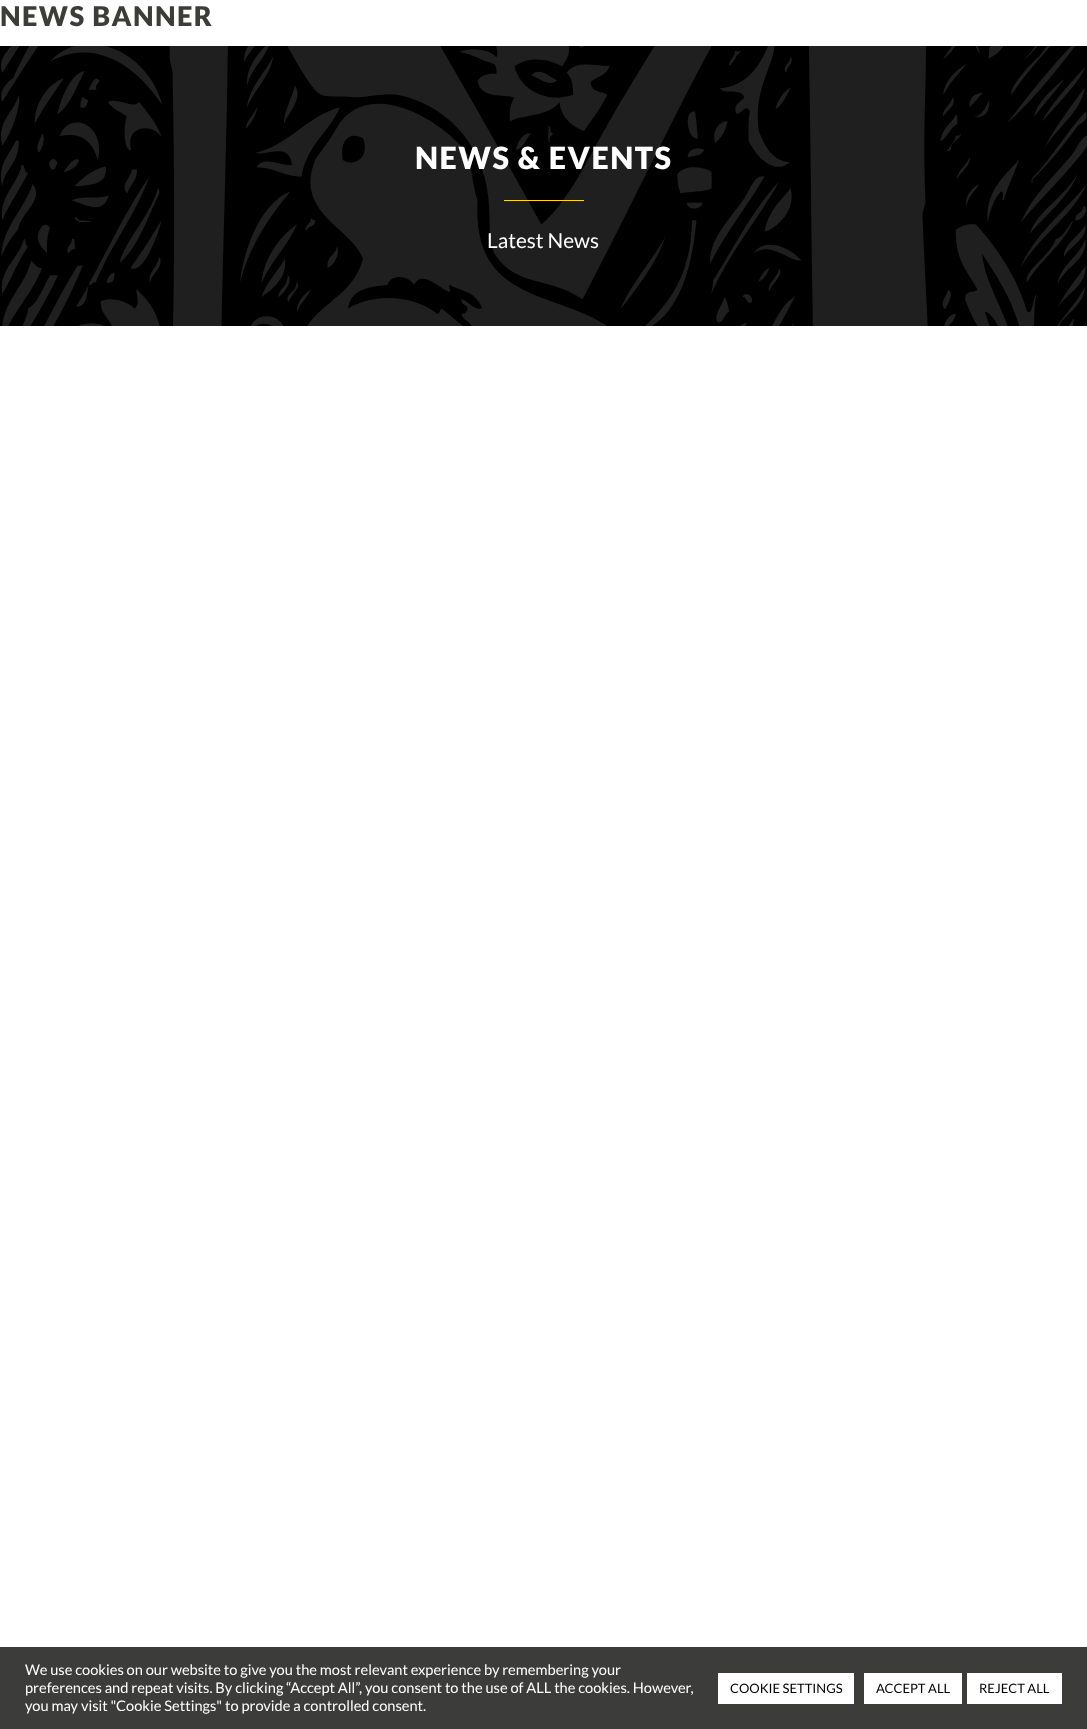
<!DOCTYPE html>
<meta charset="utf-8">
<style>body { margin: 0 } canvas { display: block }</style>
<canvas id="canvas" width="1087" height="1729"></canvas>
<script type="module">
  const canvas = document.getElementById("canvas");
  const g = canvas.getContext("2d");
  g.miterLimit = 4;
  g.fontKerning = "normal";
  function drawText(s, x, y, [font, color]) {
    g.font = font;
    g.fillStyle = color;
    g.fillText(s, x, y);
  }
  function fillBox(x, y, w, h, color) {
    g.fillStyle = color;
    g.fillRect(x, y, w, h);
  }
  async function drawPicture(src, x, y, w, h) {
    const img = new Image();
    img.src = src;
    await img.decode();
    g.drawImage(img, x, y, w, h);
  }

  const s1 = ["900 27.25px Lato", "#3C3C3B"];
  const s2 = ["900 30.5px Lato", "#FFFFFF"];
  const s3 = ["20.75px Lato", "#FFFFFF"];
  const s4 = ["14.65px Lato", "#FFFFFF"];
  const s5 = ["13px Lato", "#000000"];

  fillBox(0, 0, 1087, 1729, "#FFFFFF");
  g.letterSpacing = "1.4px";
  drawText("NEWS BANNER", 0, 26, s1);
  fillBox(0, 46, 1087, 280, "#000000");
  await drawPicture("pic1.png", 0, 46, 1087, 280);
  g.letterSpacing = "1.5px";
  drawText("NEWS & EVENTS", 415, 169, s2);
  fillBox(504, 200, 80, 1, "#FFD52C");
  g.letterSpacing = "0px";
  drawText("Latest News", 487, 248, s3);
  fillBox(0, 1647, 1087, 82, "#3C3C3B");
  drawText("We use cookies on our website to give you the most relevant experience by remembering your", 25, 1675, s4);
  drawText("preferences and repeat visits. By clicking “Accept All”, you consent to the use of ALL the cookies. However,", 25, 1693, s4);
  drawText("you may visit \"Cookie Settings\" to provide a controlled consent.", 25, 1711, s4);
  fillBox(718, 1673, 136, 31, "#FFFFFF");
  drawText("COOKIE SETTINGS", 730, 1693, s5);
  fillBox(864, 1673, 98, 31, "#FFFFFF");
  drawText("ACCEPT ALL", 876, 1693, s5);
  fillBox(967, 1673, 95, 31, "#FFFFFF");
  drawText("REJECT ALL", 979, 1693, s5);
</script>
